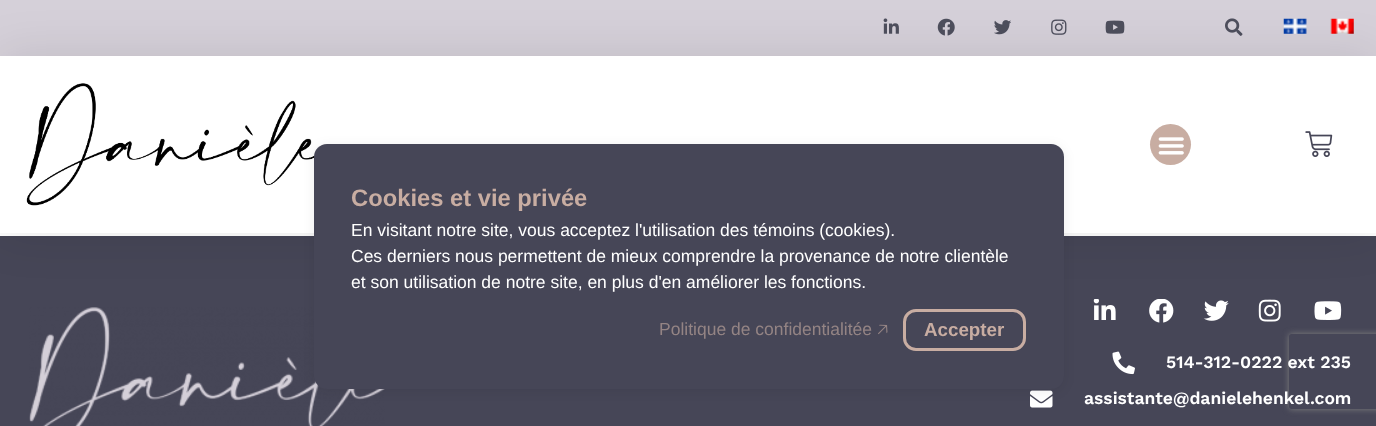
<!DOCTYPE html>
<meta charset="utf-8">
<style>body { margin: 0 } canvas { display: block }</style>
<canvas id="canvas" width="1376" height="426"></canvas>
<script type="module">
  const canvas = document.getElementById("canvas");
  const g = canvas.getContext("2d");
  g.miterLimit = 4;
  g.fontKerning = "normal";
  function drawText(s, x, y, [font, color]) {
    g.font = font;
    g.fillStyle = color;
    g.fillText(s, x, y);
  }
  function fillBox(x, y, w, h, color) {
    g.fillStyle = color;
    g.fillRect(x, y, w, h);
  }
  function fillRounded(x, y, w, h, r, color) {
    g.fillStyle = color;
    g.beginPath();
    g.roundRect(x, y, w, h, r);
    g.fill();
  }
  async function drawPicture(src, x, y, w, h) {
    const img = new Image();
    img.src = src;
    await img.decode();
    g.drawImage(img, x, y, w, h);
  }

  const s1 = ["bold 23.75px Liberation Sans", "#C8ADA2"];
  const s2 = ["17.5px Liberation Sans", "#FFFFFF"];
  const s3 = ["17.5px Liberation Sans", "#948484"];
  const s4 = ["17.5px 'Noto Sans Symbols 2'", "#948484"];
  const s5 = ["bold 18.75px Liberation Sans", "#C8ADA2"];
  const s6 = ["600 17.5px Work Sans", "#FFFFFF"];

  fillBox(0, 0, 1376, 426, "#FFFFFF");
  fillBox(0, 0, 1376, 56, "#D5D0D9");
  await drawPicture("pic1.png", 883, 18, 16, 16);
  await drawPicture("pic2.png", 937, 18, 18, 18);
  await drawPicture("pic3.png", 994, 20, 17, 15);
  await drawPicture("pic4.png", 1051, 19, 16, 16);
  await drawPicture("pic5.png", 1105, 20, 20, 14);
  await drawPicture("pic6.png", 1225, 18, 18, 18);
  await drawPicture("pic7.png", 1283, 18, 24, 16);
  await drawPicture("pic8.png", 1330, 18, 24, 16);
  fillBox(0, 236, 1376, 190, "#464657");
  await drawPicture("pic13.png", 1093, 299, 23, 21);
  await drawPicture("pic14.png", 1149, 299, 25, 24);
  await drawPicture("pic15.png", 1203, 300, 26, 21);
  await drawPicture("pic16.png", 1258, 299, 23, 23);
  await drawPicture("pic17.png", 1314, 301, 28, 19);
  g.fillStyle = "rgba(0, 0, 0, 0.1)";
  g.filter = "blur(24px)";
  g.beginPath();
  g.rect(0, 56, 1376, 177);
  g.fill();
  g.filter = "none";
  fillBox(0, 56, 1376, 177, "#FFFFFF");
  await drawPicture("pic9.png", 26, 83, 289, 123);
  g.fillStyle = "#C8ADA2";
  g.beginPath();
  g.arc(1170.5, 144.5, 20.5, 0, Math.PI * 2);
  g.fill();
  await drawPicture("pic10.png", 1158, 137, 26, 18);
  await drawPicture("pic11.png", 1305, 131, 28, 26);
  await drawPicture("pic12.png", 29, 307, 356, 119);
  await drawPicture("pic19.png", 1030, 390, 23, 18);
  g.fillStyle = "rgba(0, 0, 0, 0.07)";
  g.filter = "blur(6px)";
  g.beginPath();
  g.roundRect(314, 146, 750, 245, 13);
  g.fill();
  g.filter = "none";
  fillRounded(314, 144, 750, 245, 13, "#464657");
  drawText("Cookies et vie privée", 351, 206, s1);
  drawText("En visitant notre site, vous acceptez l'utilisation des témoins (cookies).", 351, 236, s2);
  drawText("Ces derniers nous permettent de mieux comprendre la provenance de notre clientèle", 351, 262, s2);
  drawText("et son utilisation de notre site, en plus d'en améliorer les fonctions.", 351, 288, s2);
  drawText("Politique de confidentialitée", 659, 335, s3);
  drawText("🡥", 877, 335, s4);
  g.beginPath();
  g.roundRect(904.5, 310.5, 120, 39, 11.5);
  g.strokeStyle = "#C8ADA2";
  g.lineWidth = 3;
  g.stroke();
  drawText("Accepter", 924, 336, s5);
  g.save();
  g.beginPath();
  g.moveTo(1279, 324);
  g.lineTo(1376, 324);
  g.lineTo(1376, 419);
  g.lineTo(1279, 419);
  g.closePath();
  g.moveTo(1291.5, 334);
  g.lineTo(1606.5, 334);
  g.bezierCurveTo(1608, 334, 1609, 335, 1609, 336.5);
  g.lineTo(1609, 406.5);
  g.bezierCurveTo(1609, 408, 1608, 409, 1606.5, 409);
  g.lineTo(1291.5, 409);
  g.bezierCurveTo(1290, 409, 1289, 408, 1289, 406.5);
  g.lineTo(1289, 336.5);
  g.bezierCurveTo(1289, 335, 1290, 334, 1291.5, 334);
  g.closePath();
  g.clip("evenodd");
  g.fillStyle = "#808080";
  g.filter = "blur(3px)";
  g.beginPath();
  g.roundRect(1289, 334, 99, 75, 2.5);
  g.fill();
  g.filter = "none";
  g.restore();
  await drawPicture("pic18.png", 1112, 351, 23, 24);
  drawText("514-312-0222 ext 235", 1166, 368, s6);
  drawText("assistante@danielehenkel.com", 1084, 404, s6);
</script>
